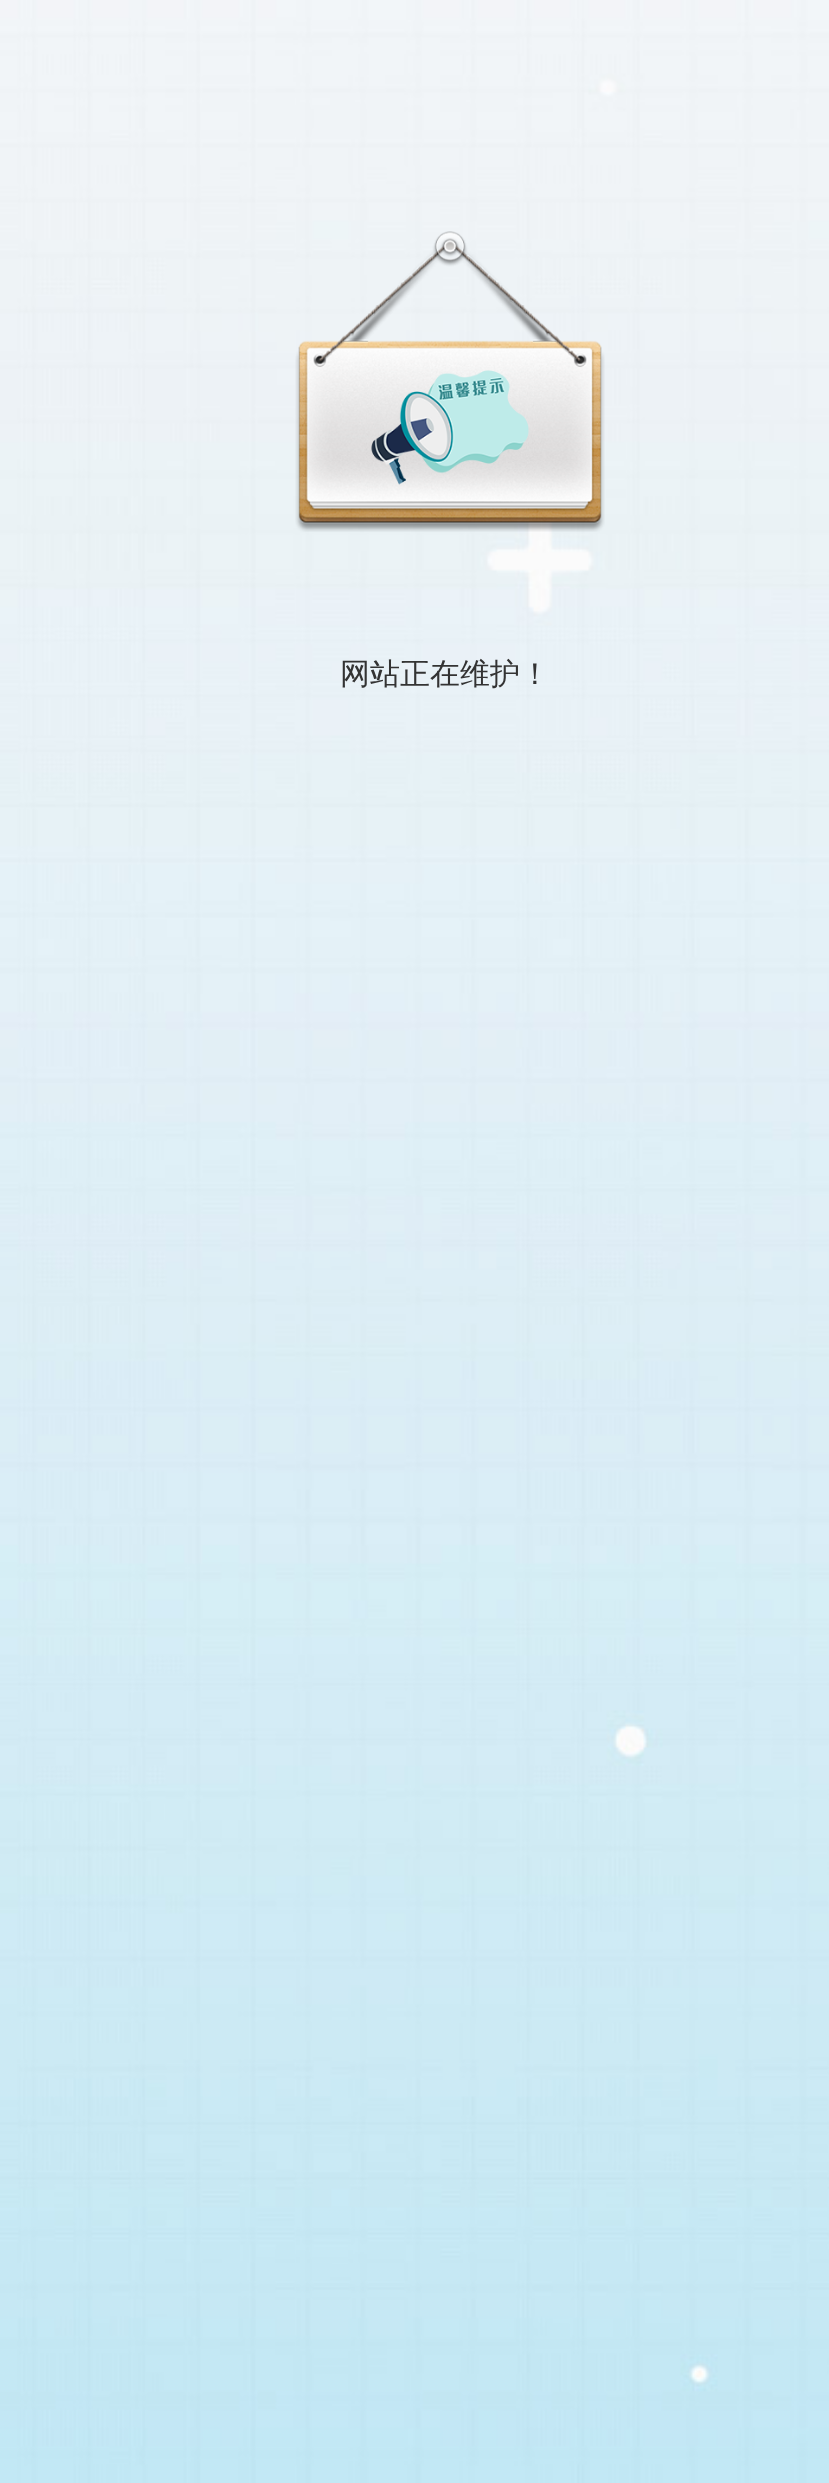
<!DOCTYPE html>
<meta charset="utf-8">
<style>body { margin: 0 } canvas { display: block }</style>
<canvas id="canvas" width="829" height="2483"></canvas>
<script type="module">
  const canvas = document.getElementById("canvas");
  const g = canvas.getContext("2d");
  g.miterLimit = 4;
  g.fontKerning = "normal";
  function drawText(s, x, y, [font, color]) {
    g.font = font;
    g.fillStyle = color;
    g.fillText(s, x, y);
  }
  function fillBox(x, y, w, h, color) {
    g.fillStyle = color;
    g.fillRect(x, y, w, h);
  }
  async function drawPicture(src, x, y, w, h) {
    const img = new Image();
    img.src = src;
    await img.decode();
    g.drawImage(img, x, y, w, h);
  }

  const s1 = ["500 30px WenQuanYi Zen Hei", "#333333"];

  fillBox(0, 0, 829, 2483, "#FFFFFF");
  await drawPicture("pic1.png", 0, 0, 829, 2483);
  await drawPicture("pic2.png", 295, 231, 310, 301);
  drawText("网站正在维护！", 340, 684, s1);
</script>
